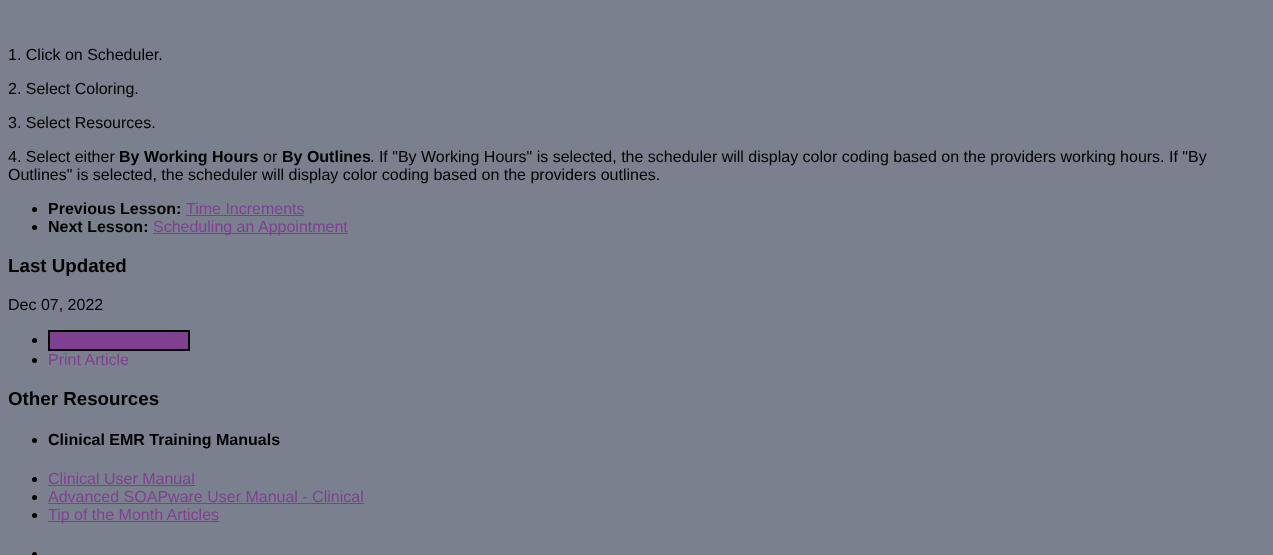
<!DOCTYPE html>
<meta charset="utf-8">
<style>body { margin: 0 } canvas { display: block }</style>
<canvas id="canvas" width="1273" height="555"></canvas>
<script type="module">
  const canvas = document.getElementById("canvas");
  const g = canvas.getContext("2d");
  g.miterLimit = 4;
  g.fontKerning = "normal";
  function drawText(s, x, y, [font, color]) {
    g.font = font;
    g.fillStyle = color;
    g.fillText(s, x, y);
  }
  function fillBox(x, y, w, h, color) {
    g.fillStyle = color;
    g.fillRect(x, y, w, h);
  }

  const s1 = ["16px Liberation Sans", "#000000"];
  const s2 = ["bold 16px Liberation Sans", "#000000"];
  const s3 = ["16px Liberation Sans", "#804092"];
  const s4 = ["bold 18.75px Liberation Sans", "#000000"];

  fillBox(0, 0, 1273, 555, "#7B808E");
  drawText("1. Click on Scheduler.", 8, 60, s1);
  drawText("2. Select Coloring.", 8, 94, s1);
  drawText("3. Select Resources.", 8, 128, s1);
  drawText("4. Select either", 8, 162, s1);
  drawText("By Working Hours", 119, 162, s2);
  drawText("or", 263, 162, s1);
  drawText("By Outlines", 282, 162, s2);
  drawText(". If \"By Working Hours\" is selected, the scheduler will display color coding based on the providers working hours. If \"By", 370, 162, s1);
  drawText("Outlines\" is selected, the scheduler will display color coding based on the providers outlines.", 8, 180, s1);
  g.beginPath();
  g.arc(34.5, 209.5, 2.5, 0, Math.PI * 2);
  g.fill();
  drawText("Previous Lesson:", 48, 214, s2);
  drawText("Time Increments", 186, 214, s3);
  fillBox(186, 215, 118, 1, "#804092");
  g.fillStyle = "#000000";
  g.beginPath();
  g.arc(34.5, 227.5, 2.5, 0, Math.PI * 2);
  g.fill();
  drawText("Next Lesson:", 48, 232, s2);
  fillBox(153, 233, 195, 1, "#804092");
  drawText("Scheduling an Appointment", 153, 232, s3);
  drawText("Last Updated", 8, 272, s4);
  drawText("Dec 07, 2022", 8, 310, s1);
  g.beginPath();
  g.arc(34.5, 340.5, 2.5, 0, Math.PI * 2);
  g.fill();
  g.fillStyle = "#804092";
  g.beginPath();
  g.rect(49, 331, 140, 19);
  g.fill();
  g.strokeStyle = "#000000";
  g.lineWidth = 2;
  g.stroke();
  g.fillStyle = "#000000";
  g.beginPath();
  g.arc(34.5, 360.5, 2.5, 0, Math.PI * 2);
  g.fill();
  drawText("Print Article", 48, 365, s3);
  drawText("Other Resources", 8, 405, s4);
  g.beginPath();
  g.arc(34.5, 440.5, 2.5, 0, Math.PI * 2);
  g.fill();
  drawText("Clinical EMR Training Manuals", 48, 445, s2);
  g.beginPath();
  g.arc(34.5, 479.5, 2.5, 0, Math.PI * 2);
  g.fill();
  drawText("Clinical User Manual", 48, 484, s3);
  fillBox(48, 485, 147, 1, "#804092");
  g.fillStyle = "#000000";
  g.beginPath();
  g.arc(34.5, 497.5, 2.5, 0, Math.PI * 2);
  g.fill();
  drawText("Advanced SOAPware User Manual - Clinical", 48, 502, s3);
  fillBox(48, 503, 316, 1, "#804092");
  g.fillStyle = "#000000";
  g.beginPath();
  g.arc(34.5, 515.5, 2.5, 0, Math.PI * 2);
  g.fill();
  fillBox(48, 521, 171, 1, "#804092");
  drawText("Tip of the Month Articles", 48, 520, s3);
  g.fillStyle = "#000000";
  g.beginPath();
  g.arc(34.5, 554.5, 2.5, 0, Math.PI * 2);
  g.fill();
</script>
